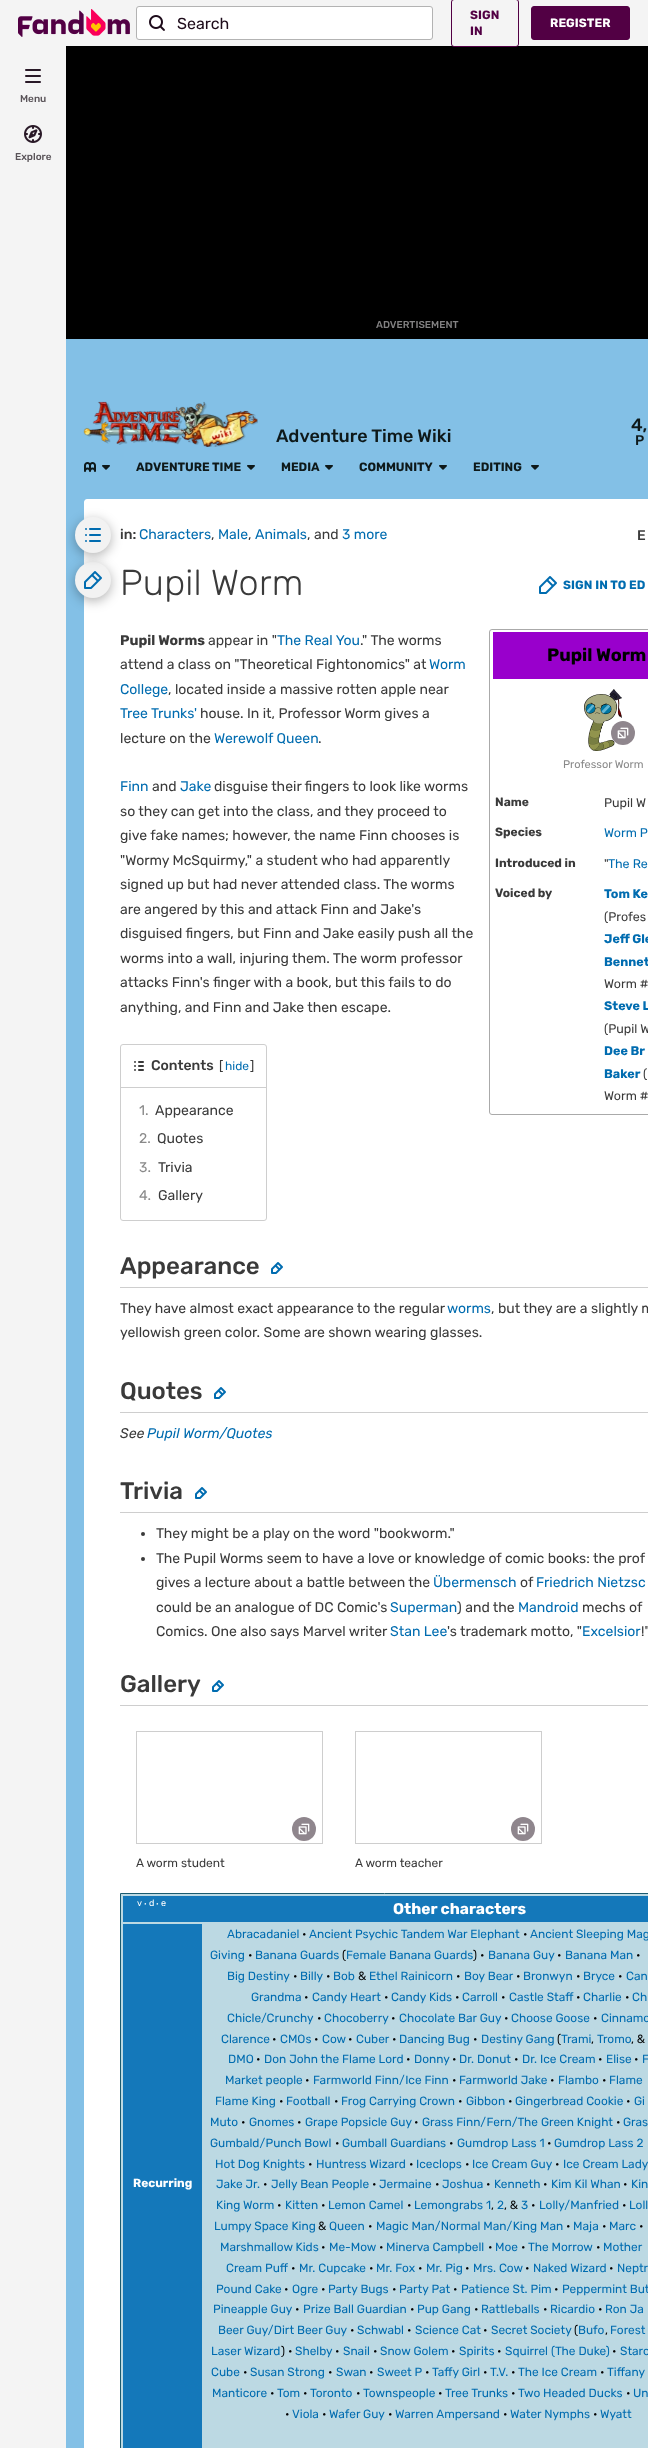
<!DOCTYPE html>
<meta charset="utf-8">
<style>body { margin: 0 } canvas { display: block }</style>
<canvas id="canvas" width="648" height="2448"></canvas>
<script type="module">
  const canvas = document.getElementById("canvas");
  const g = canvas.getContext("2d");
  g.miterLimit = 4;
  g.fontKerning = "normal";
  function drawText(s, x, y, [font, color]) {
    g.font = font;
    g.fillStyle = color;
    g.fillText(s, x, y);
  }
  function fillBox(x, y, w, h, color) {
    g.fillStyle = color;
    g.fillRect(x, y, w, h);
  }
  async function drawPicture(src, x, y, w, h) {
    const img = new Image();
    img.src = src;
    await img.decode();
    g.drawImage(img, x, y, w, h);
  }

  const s1 = ["16px Rubik", "#1E0C1B"];
  const s2 = ["bold 12px Rubik", "#520044"];
  const s3 = ["bold 12px Rubik", "#FFFFFF"];
  const s4 = ["500 10px Rubik", "#595358"];
  const s5 = ["500 10px Rubik", "#838283"];
  const s6 = ["500 18px Rubik", "#0E191A"];
  const s7 = ["500 14px Rubik", "#0E191A"];
  const s8 = ["bold 12px Rubik", "#0E191A"];
  const s9 = ["500 14px Rubik", "#3A3A3A"];
  const s10 = ["14px Rubik", "#006CB0"];
  const s11 = ["14px Rubik", "#3A3A3A"];
  const s12 = ["300 36px Rubik", "#3A3A3A"];
  const s13 = ["bold 12px Rubik", "#006CB0"];
  const s14 = ["bold 14px Rubik", "#3A3A3A"];
  const s15 = ["bold 18px Rubik", "#000000"];
  const s16 = ["11px Rubik", "#898989"];
  const s17 = ["bold 12px Rubik", "#3A3A3A"];
  const s18 = ["12.5px Rubik", "#3A3A3A"];
  const s19 = ["12.5px Rubik", "#006CB0"];
  const s20 = ["bold 12.5px Rubik", "#006CB0"];
  const s21 = ["13px Rubik", "#3A3A3A"];
  const s22 = ["12px Rubik", "#006CB0"];
  const s23 = ["14px Rubik", "#898989"];
  const s24 = ["500 24px Rubik", "#3A3A3A"];
  const s25 = ["italic 14px Rubik", "#3A3A3A"];
  const s26 = ["italic 14px Rubik", "#006CB0"];
  const s27 = ["12px Rubik", "#3A3A3A"];
  const s28 = ["9px Rubik", "#FFFFFF"];
  const s29 = ["7px Rubik", "#FFFFFF"];
  const s30 = ["bold 15.5px Rubik", "#FFFFFF"];
  const s31 = ["bold 11.9px Rubik", "#FFFFFF"];
  const s32 = ["11.9px Rubik", "#006CB0"];
  const s33 = ["11.9px Rubik", "#000000"];

  fillBox(0, 0, 648, 2448, "#83C0E6");
  fillBox(0, 0, 648, 46, "#F4F4F4");
  await drawPicture("pic1.png", 18, 9, 112, 28);
  g.fillStyle = "#FFFFFF";
  g.beginPath();
  g.roundRect(136.5, 6.5, 296, 33, 2.5);
  g.fill();
  g.strokeStyle = "#B3B3B3";
  g.stroke();
  await drawPicture("pic2.png", 149, 15, 16, 16);
  drawText("Search", 177, 29, s1);
  fillBox(66, 46, 582, 293, "#000000");
  g.beginPath();
  g.roundRect(451.5, -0.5, 67, 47, 2.5);
  g.strokeStyle = "#520044";
  g.stroke();
  g.letterSpacing = "0.1px";
  drawText("SIGN", 470, 19, s2);
  drawText("IN", 470, 35, s2);
  g.beginPath();
  g.roundRect(531.5, 6.5, 98, 33, 2.5);
  g.fill();
  g.stroke();
  drawText("REGISTER", 550, 27, s3);
  g.beginPath();
  g.moveTo(87, 499);
  g.lineTo(648, 499);
  g.bezierCurveTo(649.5, 499, 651, 500.5, 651, 502);
  g.lineTo(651, 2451);
  g.lineTo(84, 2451);
  g.lineTo(84, 502);
  g.bezierCurveTo(84, 500.5, 85.5, 499, 87, 499);
  g.closePath();
  g.fill();
  g.fillStyle = "rgba(0, 0, 0, 0.3)";
  g.filter = "blur(6px)";
  g.beginPath();
  g.roundRect(75, 565, 36, 36, 18);
  g.fill();
  g.filter = "none";
  g.fillStyle = "#F2F2F2";
  g.beginPath();
  g.arc(93, 580, 18, 0, Math.PI * 2);
  g.fill();
  await drawPicture("pic9.png", 84, 571, 18, 18);
  g.fillStyle = "rgba(0, 0, 0, 0.3)";
  g.filter = "blur(6px)";
  g.beginPath();
  g.roundRect(75, 520, 36, 36, 18);
  g.fill();
  g.filter = "none";
  fillBox(0, 46, 66, 2402, "#F4F4F4");
  await drawPicture("pic3.png", 25, 69, 16, 14);
  g.letterSpacing = "0px";
  drawText("Menu", 20, 102, s4);
  await drawPicture("pic4.png", 24, 125, 18, 18);
  drawText("Explore", 15, 160, s4);
  drawText("ADVERTISEMENT", 376, 328, s5);
  await drawPicture("pic5.png", 83, 401, 175, 46);
  drawText("Adventure Time Wiki", 276, 442, s6);
  drawText("4,", 631, 431, s6);
  drawText("P", 635, 445, s7);
  await drawPicture("pic6.png", 84, 462, 12, 10);
  await drawPicture("pic7.png", 102, 465, 8, 5);
  drawText("ADVENTURE TIME", 136, 471, s8);
  await drawPicture("pic7.png", 247, 465, 8, 5);
  drawText("MEDIA", 281, 471, s8);
  await drawPicture("pic7.png", 325, 465, 8, 5);
  drawText("COMMUNITY", 359, 471, s8);
  await drawPicture("pic7.png", 439, 465, 8, 5);
  drawText("EDITING", 473, 471, s8);
  await drawPicture("pic7.png", 531, 465, 8, 5);
  g.fillStyle = "#F2F2F2";
  g.beginPath();
  g.arc(93, 535, 18, 0, Math.PI * 2);
  g.fill();
  await drawPicture("pic8.png", 85, 528, 16, 14);
  drawText("in:", 120, 539, s9);
  drawText("Characters", 139, 539, s10);
  drawText(",", 211, 539, s11);
  drawText("Male", 218, 539, s10);
  drawText(",", 248, 539, s11);
  drawText("Animals", 255, 539, s10);
  drawText(",", 307, 539, s11);
  drawText("and", 314, 539, s11);
  drawText("3 more", 342, 539, s10);
  drawText("E", 637, 540, s9);
  g.letterSpacing = "0.25px";
  drawText("Pupil Worm", 120, 595, s12);
  await drawPicture("pic10.png", 539, 576, 18, 18);
  g.letterSpacing = "0.1px";
  drawText("SIGN IN TO ED", 563, 589, s13);
  g.letterSpacing = "0px";
  drawText("Pupil Worms", 120, 645, s14);
  drawText("appear in \"", 208, 645, s11);
  drawText("The Real You", 277, 645, s10);
  drawText(".\" The worms", 360, 645, s11);
  drawText("attend a class on \"Theoretical Fightonomics\" at", 120, 669, s11);
  drawText("Worm", 429, 669, s10);
  g.beginPath();
  g.roundRect(489.5, 629.5, 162, 485, 2.5);
  g.strokeStyle = "#AAAAAA";
  g.stroke();
  fillBox(493, 632, 155, 47, "#9900CC");
  drawText("Pupil Worm", 547, 661, s15);
  await drawPicture("pic11.png", 584, 689, 38, 62);
  g.fillStyle = "#8F868D";
  g.beginPath();
  g.arc(623, 733, 12, 0, Math.PI * 2);
  g.fill();
  await drawPicture("pic12.png", 617, 727, 12, 12);
  drawText("Professor Worm", 563, 768, s16);
  drawText("Name", 495, 806, s17);
  drawText("Pupil W", 604, 807, s18);
  drawText("Species", 495, 836, s17);
  drawText("Worm P", 604, 837, s19);
  drawText("Introduced in", 495, 867, s17);
  drawText("\"", 604, 868, s18);
  drawText("The Re", 608, 868, s19);
  drawText("Voiced by", 495, 897, s17);
  drawText("Tom Ke", 604, 898, s20);
  drawText("(Profes", 604, 921, s18);
  drawText("Jeff Gle", 604, 943, s20);
  drawText("Bennet", 604, 966, s20);
  drawText("Worm #", 604, 988, s18);
  drawText("Steve L", 604, 1010, s20);
  drawText("(Pupil W", 604, 1033, s18);
  drawText("Dee Br", 604, 1055, s20);
  drawText("Baker", 604, 1078, s20);
  drawText("(", 643, 1078, s18);
  drawText("Worm #", 604, 1100, s18);
  drawText("College", 120, 694, s10);
  drawText(", located inside a massive rotten apple near", 168, 694, s11);
  drawText("Tree Trunks'", 120, 718, s10);
  drawText("house. In it, Professor Worm gives a", 200, 718, s11);
  drawText("lecture on the", 120, 743, s11);
  drawText("Werewolf Queen", 214, 743, s10);
  drawText(".", 318, 743, s11);
  drawText("Finn", 120, 791, s10);
  drawText("and", 152, 791, s11);
  drawText("Jake", 180, 791, s10);
  drawText("disguise their fingers to look like worms", 214, 791, s11);
  drawText("so they can get into the class, and they proceed to", 120, 816, s11);
  drawText("give fake names; however, the name Finn chooses is", 120, 840, s11);
  drawText("\"Wormy McSquirmy,\" a student who had apparently", 120, 865, s11);
  drawText("signed up but had never attended class. The worms", 120, 889, s11);
  drawText("are angered by this and attack Finn and Jake's", 120, 914, s11);
  drawText("disguised fingers, but Finn and Jake easily push all the", 120, 938, s11);
  drawText("worms into a wall, injuring them. The worm professor", 120, 963, s11);
  drawText("attacks Finn's finger with a book, but this fails to do", 120, 987, s11);
  drawText("anything, and Finn and Jake then escape.", 120, 1012, s11);
  g.beginPath();
  g.roundRect(120.5, 1044.5, 146, 176, 2.5);
  g.strokeStyle = "#CECECE";
  g.stroke();
  fillBox(121, 1087, 145, 1, "#CECECE");
  await drawPicture("pic13.png", 134, 1061, 10, 10);
  drawText("Contents", 151, 1070, s9);
  drawText("[", 219, 1070, s21);
  drawText("hide", 225, 1070, s22);
  drawText("]", 250, 1070, s21);
  drawText("1.", 139, 1115, s23);
  drawText("Appearance", 155, 1115, s11);
  drawText("2.", 139, 1143, s23);
  drawText("Quotes", 157, 1143, s11);
  drawText("3.", 139, 1172, s23);
  drawText("Trivia", 158, 1172, s11);
  drawText("4.", 139, 1200, s23);
  drawText("Gallery", 158, 1200, s11);
  fillBox(120, 1287, 528, 1, "#CECECE");
  drawText("Appearance", 120, 1274, s24);
  await drawPicture("pic14.png", 271, 1262, 12, 12);
  drawText("They have almost exact appearance to the regular", 120, 1313, s11);
  drawText("worms", 447, 1313, s10);
  drawText(", but they are a slightly m", 491, 1313, s11);
  drawText("yellowish green color. Some are shown wearing glasses.", 120, 1337, s11);
  fillBox(120, 1412, 528, 1, "#CECECE");
  drawText("Quotes", 120, 1399, s24);
  await drawPicture("pic14.png", 214, 1387, 12, 12);
  drawText("See", 120, 1438, s25);
  drawText("Pupil Worm/Quotes", 147, 1438, s26);
  fillBox(120, 1512, 528, 1, "#CECECE");
  drawText("Trivia", 120, 1499, s24);
  await drawPicture("pic14.png", 195, 1487, 12, 12);
  g.beginPath();
  g.arc(143, 1534, 2, 0, Math.PI * 2);
  g.fill();
  drawText("They might be a play on the word \"bookworm.\"", 156, 1538, s11);
  g.beginPath();
  g.arc(143, 1559, 2, 0, Math.PI * 2);
  g.fill();
  drawText("The Pupil Worms seem to have a love or knowledge of comic books: the prof", 156, 1563, s11);
  drawText("gives a lecture about a battle between the", 156, 1587, s11);
  drawText("Übermensch", 433, 1587, s10);
  drawText("of", 520, 1587, s11);
  drawText("Friedrich Nietzsc", 536, 1587, s10);
  drawText("could be an analogue of DC Comic's", 156, 1612, s11);
  drawText("Superman", 390, 1612, s10);
  drawText(") and the", 457, 1612, s11);
  drawText("Mandroid", 518, 1612, s10);
  drawText("mechs of", 582, 1612, s11);
  drawText("Comics. One also says Marvel writer", 156, 1636, s11);
  drawText("Stan Lee", 390, 1636, s10);
  drawText("'s trademark motto, \"", 447, 1636, s11);
  drawText("Excelsior", 582, 1636, s10);
  drawText("!\"", 641, 1636, s11);
  fillBox(120, 1705, 528, 1, "#CECECE");
  drawText("Gallery", 120, 1692, s24);
  await drawPicture("pic14.png", 212, 1680, 12, 12);
  g.strokeRect(136.5, 1731.5, 186, 112);
  g.fillStyle = "#8F868D";
  g.beginPath();
  g.arc(304, 1829, 12, 0, Math.PI * 2);
  g.fill();
  await drawPicture("pic12.png", 298, 1823, 12, 12);
  drawText("A worm student", 136, 1867, s27);
  g.strokeRect(355.5, 1731.5, 186, 112);
  g.fillStyle = "#8F868D";
  g.beginPath();
  g.arc(523, 1829, 12, 0, Math.PI * 2);
  g.fill();
  await drawPicture("pic12.png", 517, 1823, 12, 12);
  drawText("A worm teacher", 355, 1867, s27);
  g.fillStyle = "#BCD9E3";
  g.beginPath();
  g.rect(120.5, 1893.5, 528, 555);
  g.fill();
  g.strokeStyle = "#1A5B70";
  g.stroke();
  fillBox(123, 1896, 525, 26, "#1478BA");
  drawText("v", 137, 1906, s28);
  drawText("•", 144, 1906, s29);
  drawText("d", 149, 1906, s28);
  drawText("•", 156, 1906, s29);
  drawText("e", 161, 1906, s28);
  drawText("Other characters", 393, 1914, s30);
  fillBox(123, 1924, 79, 524, "#1478BA");
  drawText("Recurring", 133, 2187, s31);
  drawText("Abracadaniel", 227, 1938, s32);
  drawText("•", 302, 1938, s33);
  drawText("Ancient Psychic Tandem War Elephant", 309, 1938, s32);
  drawText("•", 523, 1938, s33);
  drawText("Ancient Sleeping Mag", 530, 1938, s32);
  drawText("Giving", 210, 1959, s32);
  drawText("•", 248, 1959, s33);
  drawText("Banana Guards", 255, 1959, s32);
  drawText("(", 342, 1959, s33);
  drawText("Female Banana Guards", 346, 1959, s32);
  drawText(") •", 473, 1959, s33);
  drawText("Banana Guy", 488, 1959, s32);
  drawText("•", 557, 1959, s33);
  drawText("Banana Man", 565, 1959, s32);
  drawText("•", 636, 1959, s33);
  drawText("Big Destiny", 227, 1980, s32);
  drawText("•", 293, 1980, s33);
  drawText("Billy", 300, 1980, s32);
  drawText("•", 326, 1980, s33);
  drawText("Bob", 333, 1980, s32);
  drawText("&", 358, 1980, s33);
  drawText("Ethel Rainicorn", 369, 1980, s32);
  drawText("•", 456, 1980, s33);
  drawText("Boy Bear", 464, 1980, s32);
  drawText("•", 516, 1980, s33);
  drawText("Bronwyn", 523, 1980, s32);
  drawText("•", 576, 1980, s33);
  drawText("Bryce", 583, 1980, s32);
  drawText("•", 618, 1980, s33);
  drawText("Can", 626, 1980, s32);
  drawText("Grandma", 251, 2001, s32);
  drawText("•", 304, 2001, s33);
  drawText("Candy Heart", 312, 2001, s32);
  drawText("•", 384, 2001, s33);
  drawText("Candy Kids", 391, 2001, s32);
  drawText("•", 455, 2001, s33);
  drawText("Carroll", 462, 2001, s32);
  drawText("•", 501, 2001, s33);
  drawText("Castle Staff", 509, 2001, s32);
  drawText("•", 576, 2001, s33);
  drawText("Charlie", 583, 2001, s32);
  drawText("•", 625, 2001, s33);
  drawText("Ch", 632, 2001, s32);
  drawText("Chicle/Crunchy", 227, 2022, s32);
  drawText("•", 317, 2022, s33);
  drawText("Chocoberry", 324, 2022, s32);
  drawText("•", 391, 2022, s33);
  drawText("Chocolate Bar Guy", 399, 2022, s32);
  drawText("•", 504, 2022, s33);
  drawText("Choose Goose", 511, 2022, s32);
  drawText("•", 593, 2022, s33);
  drawText("Cinnamo", 601, 2022, s32);
  drawText("Clarence", 221, 2043, s32);
  drawText("•", 272, 2043, s33);
  drawText("CMOs", 280, 2043, s32);
  drawText("•", 314, 2043, s33);
  drawText("Cow", 322, 2043, s32);
  drawText("•", 348, 2043, s33);
  drawText("Cuber", 356, 2043, s32);
  drawText("•", 392, 2043, s33);
  drawText("Dancing Bug", 399, 2043, s32);
  drawText("•", 473, 2043, s33);
  drawText("Destiny Gang", 481, 2043, s32);
  drawText("(", 557, 2043, s33);
  drawText("Trami", 561, 2043, s32);
  drawText("Tromo", 597, 2043, s32);
  drawText(", &", 631, 2043, s33);
  drawText(",", 591, 2043, s33);
  drawText("DMO", 228, 2063, s32);
  drawText("•", 256, 2063, s33);
  drawText("Don John the Flame Lord", 264, 2063, s32);
  drawText("•", 406, 2063, s33);
  drawText("Donny", 414, 2063, s32);
  drawText("•", 452, 2063, s33);
  drawText("Dr. Donut", 459, 2063, s32);
  drawText("•", 514, 2063, s33);
  drawText("Dr. Ice Cream", 522, 2063, s32);
  drawText("•", 598, 2063, s33);
  drawText("Elise", 606, 2063, s32);
  drawText("•", 634, 2063, s33);
  drawText("F", 642, 2063, s32);
  drawText("Market people", 225, 2084, s32);
  drawText("•", 305, 2084, s33);
  drawText("Farmworld Finn/Ice Finn", 313, 2084, s32);
  drawText("•", 452, 2084, s33);
  drawText("Farmworld Jake", 459, 2084, s32);
  drawText("•", 550, 2084, s33);
  drawText("Flambo", 558, 2084, s32);
  drawText("•", 602, 2084, s33);
  drawText("Flame", 609, 2084, s32);
  drawText("Flame King", 215, 2105, s32);
  drawText("•", 279, 2105, s33);
  drawText("Football", 286, 2105, s32);
  drawText("•", 334, 2105, s33);
  drawText("Frog Carrying Crown", 341, 2105, s32);
  drawText("•", 458, 2105, s33);
  drawText("Gibbon", 466, 2105, s32);
  drawText("•", 508, 2105, s33);
  drawText("Gingerbread Cookie", 515, 2105, s32);
  drawText("•", 626, 2105, s33);
  drawText("Gi", 634, 2105, s32);
  drawText("Muto", 210, 2126, s32);
  drawText("•", 241, 2126, s33);
  drawText("Gnomes", 249, 2126, s32);
  drawText("•", 297, 2126, s33);
  drawText("Grape Popsicle Guy", 305, 2126, s32);
  drawText("•", 414, 2126, s33);
  drawText("Grass Finn/Fern/The Green Knight", 422, 2126, s32);
  drawText("•", 616, 2126, s33);
  drawText("Gras", 623, 2126, s32);
  drawText("Gumbald/Punch Bowl", 210, 2147, s32);
  drawText("•", 335, 2147, s33);
  drawText("Gumball Guardians", 342, 2147, s32);
  drawText("•", 449, 2147, s33);
  drawText("Gumdrop Lass 1", 457, 2147, s32);
  drawText("•", 547, 2147, s33);
  drawText("Gumdrop Lass 2", 554, 2147, s32);
  drawText("Hot Dog Knights", 215, 2168, s32);
  drawText("•", 308, 2168, s33);
  drawText("Huntress Wizard", 316, 2168, s32);
  drawText("•", 409, 2168, s33);
  drawText("Iceclops", 416, 2168, s32);
  drawText("•", 465, 2168, s33);
  drawText("Ice Cream Guy", 472, 2168, s32);
  drawText("•", 555, 2168, s33);
  drawText("Ice Cream Lady", 563, 2168, s32);
  drawText("Jake Jr.", 216, 2188, s32);
  drawText("•", 263, 2188, s33);
  drawText("Jelly Bean People", 271, 2188, s32);
  drawText("•", 372, 2188, s33);
  drawText("Jermaine", 379, 2188, s32);
  drawText("•", 435, 2188, s33);
  drawText("Joshua", 442, 2188, s32);
  drawText("•", 486, 2188, s33);
  drawText("Kenneth", 494, 2188, s32);
  drawText("•", 543, 2188, s33);
  drawText("Kim Kil Whan", 551, 2188, s32);
  drawText("•", 623, 2188, s33);
  drawText("Kin", 631, 2188, s32);
  drawText("King Worm", 216, 2209, s32);
  drawText("•", 277, 2209, s33);
  drawText("Kitten", 285, 2209, s32);
  drawText("•", 321, 2209, s33);
  drawText("Lemon Camel", 328, 2209, s32);
  drawText("•", 407, 2209, s33);
  drawText("Lemongrabs 1", 414, 2209, s32);
  drawText("2", 497, 2209, s32);
  drawText(", &", 504, 2209, s33);
  drawText("3", 521, 2209, s32);
  drawText("•", 531, 2209, s33);
  drawText("Lolly/Manfried", 539, 2209, s32);
  drawText("•", 622, 2209, s33);
  drawText("Loll", 629, 2209, s32);
  drawText(",", 491, 2209, s33);
  drawText("Lumpy Space King", 214, 2230, s32);
  drawText("&", 318, 2230, s33);
  drawText("Queen", 329, 2230, s32);
  drawText("•", 368, 2230, s33);
  drawText("Magic Man/Normal Man/King Man", 376, 2230, s32);
  drawText("•", 566, 2230, s33);
  drawText("Maja", 573, 2230, s32);
  drawText("•", 602, 2230, s33);
  drawText("Marc", 609, 2230, s32);
  drawText("•", 639, 2230, s33);
  drawText("Marshmallow Kids", 220, 2251, s32);
  drawText("•", 321, 2251, s33);
  drawText("Me-Mow", 329, 2251, s32);
  drawText("•", 379, 2251, s33);
  drawText("Minerva Campbell", 386, 2251, s32);
  drawText("•", 488, 2251, s33);
  drawText("Moe", 495, 2251, s32);
  drawText("•", 521, 2251, s33);
  drawText("The Morrow", 528, 2251, s32);
  drawText("•", 596, 2251, s33);
  drawText("Mother", 603, 2251, s32);
  drawText("Cream Puff", 226, 2272, s32);
  drawText("•", 291, 2272, s33);
  drawText("Mr. Cupcake", 299, 2272, s32);
  drawText("•", 369, 2272, s33);
  drawText("Mr. Fox", 376, 2272, s32);
  drawText("•", 418, 2272, s33);
  drawText("Mr. Pig", 426, 2272, s32);
  drawText("•", 465, 2272, s33);
  drawText("Mrs. Cow", 473, 2272, s32);
  drawText("•", 525, 2272, s33);
  drawText("Naked Wizard", 533, 2272, s32);
  drawText("•", 609, 2272, s33);
  drawText("Neptr", 617, 2272, s32);
  drawText("Pound Cake", 216, 2293, s32);
  drawText("•", 284, 2293, s33);
  drawText("Ogre", 292, 2293, s32);
  drawText("•", 321, 2293, s33);
  drawText("Party Bugs", 328, 2293, s32);
  drawText("•", 392, 2293, s33);
  drawText("Party Pat", 399, 2293, s32);
  drawText("•", 453, 2293, s33);
  drawText("Patience St. Pim", 461, 2293, s32);
  drawText("•", 554, 2293, s33);
  drawText("Peppermint But", 562, 2293, s32);
  drawText("Pineapple Guy", 213, 2313, s32);
  drawText("•", 295, 2313, s33);
  drawText("Prize Ball Guardian", 303, 2313, s32);
  drawText("•", 410, 2313, s33);
  drawText("Pup Gang", 417, 2313, s32);
  drawText("•", 474, 2313, s33);
  drawText("Rattleballs", 481, 2313, s32);
  drawText("•", 543, 2313, s33);
  drawText("Ricardio", 550, 2313, s32);
  drawText("•", 598, 2313, s33);
  drawText("Ron Ja", 605, 2313, s32);
  drawText("Beer Guy/Dirt Beer Guy", 218, 2334, s32);
  drawText("•", 350, 2334, s33);
  drawText("Schwabl", 357, 2334, s32);
  drawText("•", 407, 2334, s33);
  drawText("Science Cat", 415, 2334, s32);
  drawText("•", 483, 2334, s33);
  drawText("Secret Society", 491, 2334, s32);
  drawText("(", 574, 2334, s33);
  drawText("Bufo", 578, 2334, s32);
  drawText("Forest", 610, 2334, s32);
  drawText(",", 605, 2334, s33);
  drawText("Laser Wizard", 211, 2355, s32);
  drawText(") •", 281, 2355, s33);
  drawText("Shelby", 295, 2355, s32);
  drawText("•", 335, 2355, s33);
  drawText("Snail", 343, 2355, s32);
  drawText("•", 373, 2355, s33);
  drawText("Snow Golem", 380, 2355, s32);
  drawText("•", 451, 2355, s33);
  drawText("Spirits", 459, 2355, s32);
  drawText("•", 497, 2355, s33);
  drawText("Squirrel (The Duke)", 505, 2355, s32);
  drawText("•", 612, 2355, s33);
  drawText("Starc", 620, 2355, s32);
  drawText("Cube", 211, 2376, s32);
  drawText("•", 243, 2376, s33);
  drawText("Susan Strong", 250, 2376, s32);
  drawText("•", 328, 2376, s33);
  drawText("Swan", 336, 2376, s32);
  drawText("•", 369, 2376, s33);
  drawText("Sweet P", 377, 2376, s32);
  drawText("•", 425, 2376, s33);
  drawText("Taffy Girl", 432, 2376, s32);
  drawText("•", 483, 2376, s33);
  drawText("T.V.", 490, 2376, s32);
  drawText("•", 511, 2376, s33);
  drawText("The Ice Cream", 518, 2376, s32);
  drawText("•", 600, 2376, s33);
  drawText("Tiffany", 607, 2376, s32);
  drawText("Manticore", 212, 2397, s32);
  drawText("•", 270, 2397, s33);
  drawText("Tom", 277, 2397, s32);
  drawText("•", 303, 2397, s33);
  drawText("Toronto", 310, 2397, s32);
  drawText("•", 356, 2397, s33);
  drawText("Townspeople", 363, 2397, s32);
  drawText("•", 438, 2397, s33);
  drawText("Tree Trunks", 445, 2397, s32);
  drawText("•", 511, 2397, s33);
  drawText("Two Headed Ducks", 518, 2397, s32);
  drawText("•", 626, 2397, s33);
  drawText("Un", 633, 2397, s32);
  drawText("•", 285, 2418, s33);
  drawText("Viola", 292, 2418, s32);
  drawText("•", 322, 2418, s33);
  drawText("Wafer Guy", 329, 2418, s32);
  drawText("•", 388, 2418, s33);
  drawText("Warren Ampersand", 395, 2418, s32);
  drawText("•", 503, 2418, s33);
  drawText("Water Nymphs", 510, 2418, s32);
  drawText("•", 593, 2418, s33);
  drawText("Wyatt", 600, 2418, s32);
</script>
